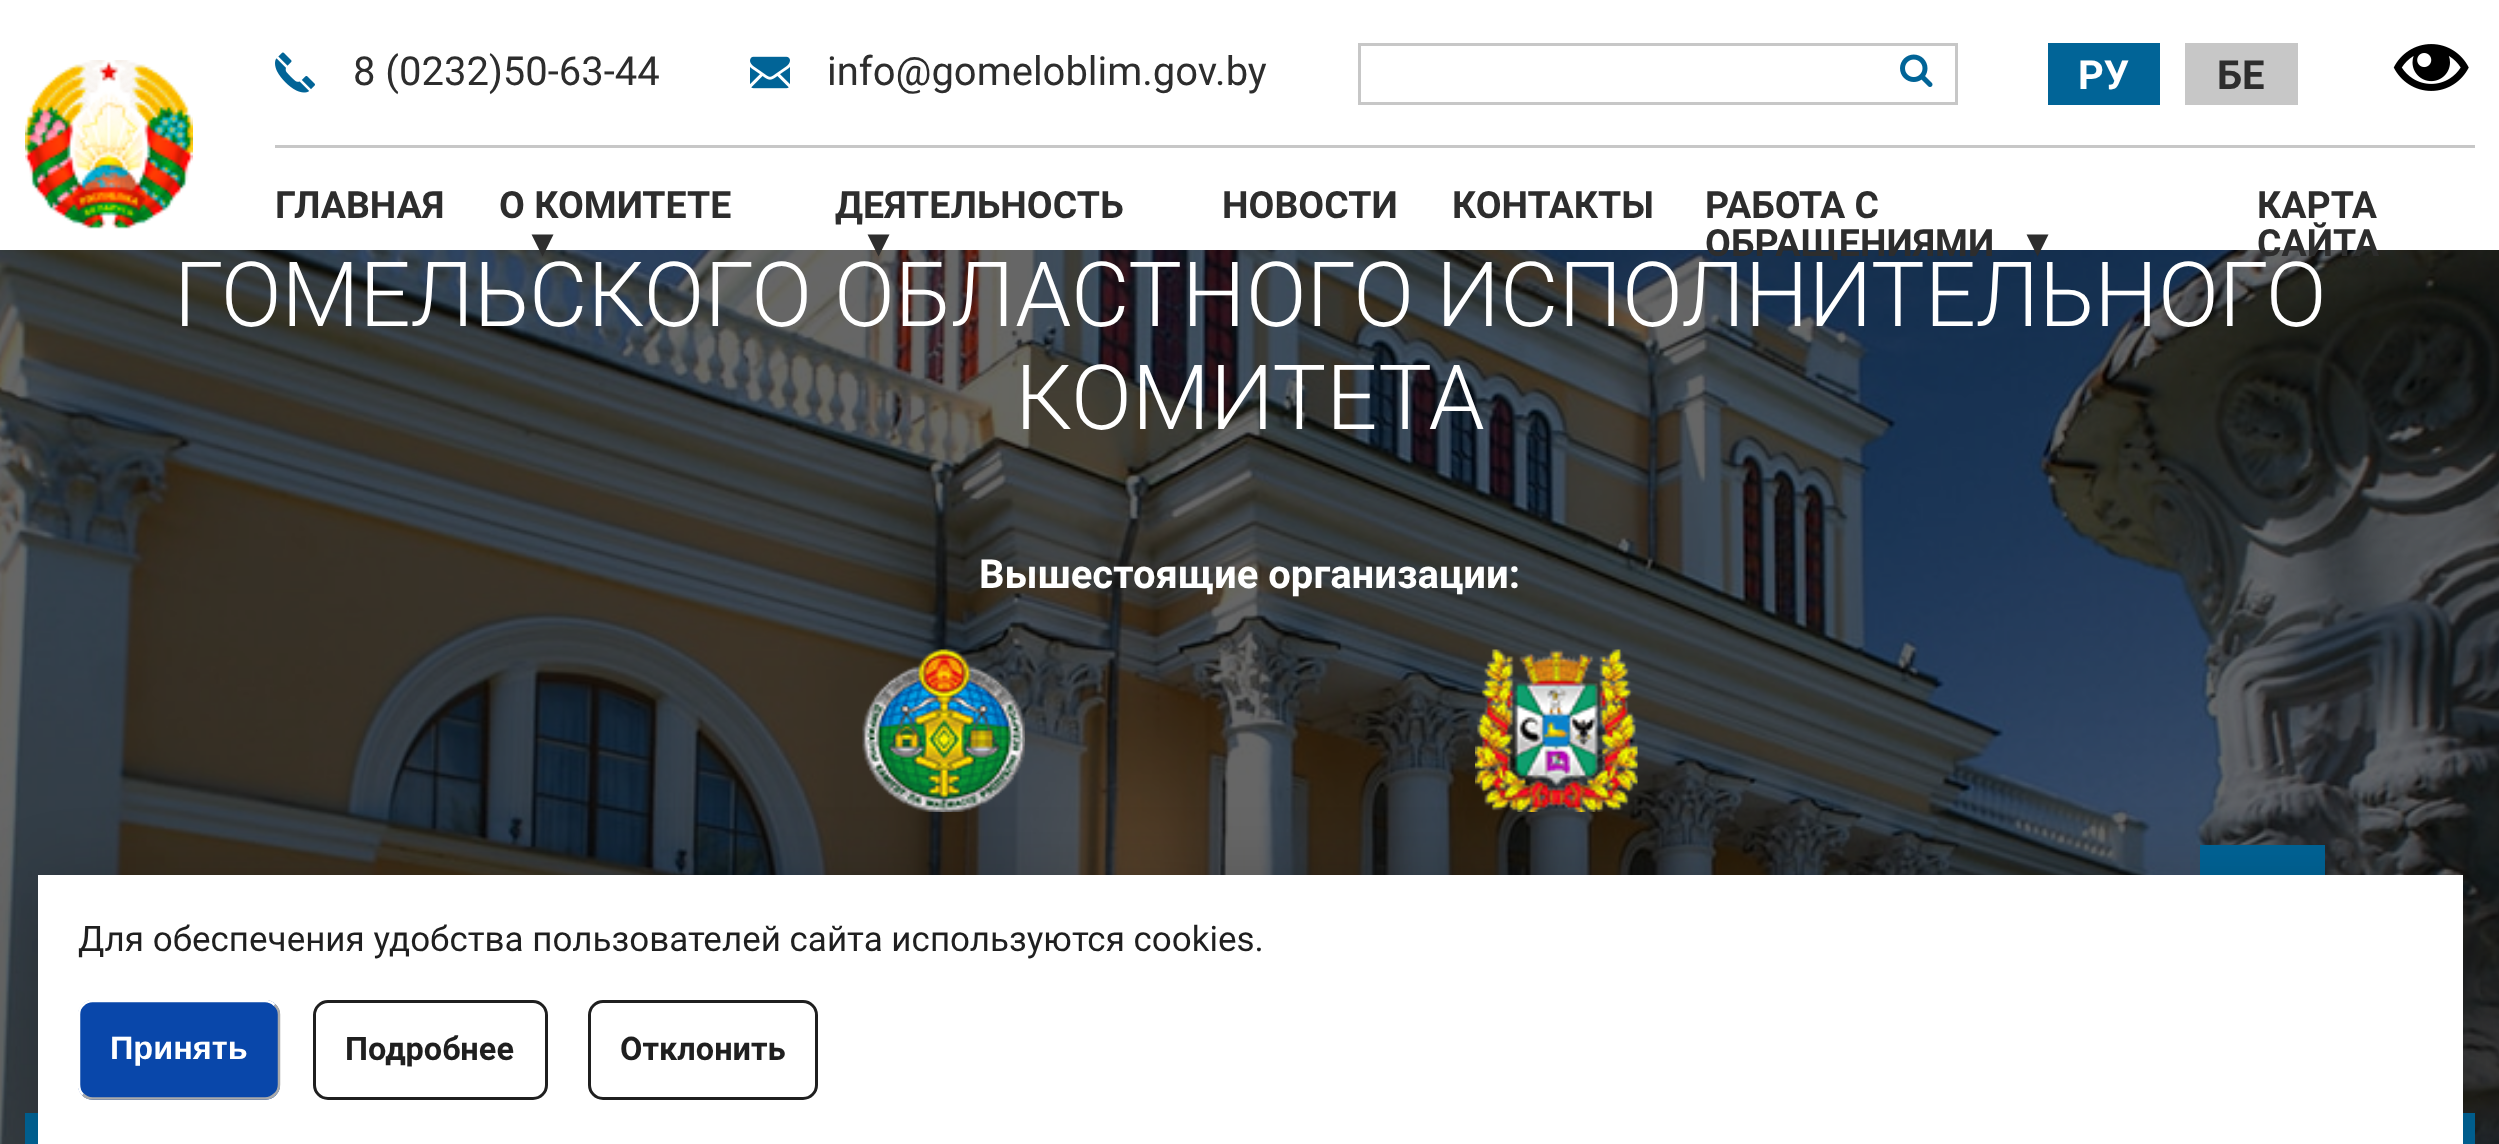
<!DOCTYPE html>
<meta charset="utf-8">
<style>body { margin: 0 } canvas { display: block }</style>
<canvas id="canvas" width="2499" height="1144"></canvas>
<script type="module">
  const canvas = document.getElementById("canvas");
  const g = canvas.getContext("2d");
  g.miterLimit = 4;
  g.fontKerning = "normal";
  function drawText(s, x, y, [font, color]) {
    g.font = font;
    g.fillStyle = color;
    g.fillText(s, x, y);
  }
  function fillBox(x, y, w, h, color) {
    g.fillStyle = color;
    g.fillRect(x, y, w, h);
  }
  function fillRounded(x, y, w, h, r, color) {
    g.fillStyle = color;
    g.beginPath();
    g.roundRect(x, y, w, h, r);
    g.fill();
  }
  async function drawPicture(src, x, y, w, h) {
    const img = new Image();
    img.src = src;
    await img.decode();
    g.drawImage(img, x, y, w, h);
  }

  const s1 = ["40px Roboto", "#2D2D2D"];
  const s2 = ["bold 40px Roboto", "#FFFFFF"];
  const s3 = ["bold 40px Roboto", "#2D2D2D"];
  const s4 = ["bold 37.5px Roboto", "#2D2D2D"];
  const s5 = ["bold 37.5px Liberation Sans", "#2D2D2D"];
  const s6 = ["300 90px Roboto", "#FFFFFF"];
  const s7 = ["35px Roboto", "#1F1F1F"];
  const s8 = ["bold 32.5px Roboto", "#1F1F1F"];
  const s9 = ["bold 32.5px Liberation Sans", "#FFFFFF"];

  fillBox(0, 0, 2499, 1144, "#FFFFFF");
  await drawPicture("pic1.png", 25, 60, 168, 169);
  fillBox(275, 145, 2200, 3, "#C7C7C7");
  await drawPicture("pic2.png", 275, 52, 40, 41);
  drawText("8 (0232)50-63-44", 353, 85, s1);
  await drawPicture("pic3.png", 750, 56, 40, 33);
  drawText("info@gomeloblim.gov.by", 827, 85, s1);
  g.strokeStyle = "#C7C7C7";
  g.lineWidth = 3;
  g.strokeRect(1359.5, 44.5, 597, 59);
  await drawPicture("pic4.png", 1900, 54, 33, 33);
  fillBox(2048, 43, 112, 62, "#016497");
  drawText("РУ", 2078, 89, s2);
  fillBox(2185, 43, 113, 62, "#C7C7C7");
  drawText("БЕ", 2217, 89, s3);
  await drawPicture("pic5.png", 2393, 44, 76, 47);
  drawText("ГЛАВНАЯ", 275, 218, s4);
  drawText("О КОМИТЕТЕ", 499, 218, s4);
  await drawPicture("pic6.png", 0, 250, 2499, 894);
  drawText("▼", 524, 256, s5);
  drawText("ДЕЯТЕЛЬНОСТЬ", 835, 218, s4);
  drawText("▼", 860, 256, s5);
  drawText("НОВОСТИ", 1222, 218, s4);
  drawText("КОНТАКТЫ", 1452, 218, s4);
  drawText("РАБОТА С", 1705, 218, s4);
  g.save();
  g.beginPath();
  g.rect(1665, 148, 553, 112);
  g.clip();
  drawText("ОБРАЩЕНИЯМИ", 1705, 256, s4);
  g.restore();
  drawText("▼", 2019, 256, s5);
  drawText("КАРТА", 2257, 218, s4);
  drawText("САЙТА", 2257, 256, s4);
  drawText("ГОМЕЛЬСКОГО ОБЛАСТНОГО ИСПОЛНИТЕЛЬНОГО", 174, 326, s6);
  drawText("КОМИТЕТА", 1015, 429, s6);
  drawText("Вышестоящие организации:", 979, 588, s2);
  await drawPicture("pic7.png", 862, 649, 163, 163);
  await drawPicture("pic8.png", 1475, 649, 163, 163);
  fillBox(25, 1113, 13, 31, "#016497");
  fillBox(2463, 1113, 12, 31, "#016497");
  fillBox(2200, 845, 125, 30, "#016497");
  g.fillStyle = "rgba(0, 0, 0, 0.2)";
  g.filter = "blur(37.5px)";
  g.beginPath();
  g.rect(38, 885, 2425, 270);
  g.fill();
  g.filter = "none";
  fillBox(38, 875, 2425, 269, "#FFFFFF");
  drawText("Для обеспечения удобства пользователей сайта используются cookies.", 78, 951, s7);
  g.beginPath();
  g.roundRect(314.5, 1001.5, 232, 97, 13.5);
  g.strokeStyle = "#1F1F1F";
  g.stroke();
  drawText("Подробнее", 345, 1060, s8);
  g.beginPath();
  g.roundRect(589.5, 1001.5, 227, 97, 13.5);
  g.stroke();
  drawText("Отклонить", 620, 1060, s8);
  fillRounded(78, 1000, 202, 100, 15, "#0947AA");
  g.beginPath();
  g.moveTo(274.5, 1005);
  g.bezierCurveTo(277.5, 1007.5, 279, 1011, 279, 1014.5);
  g.lineTo(279, 1084.5);
  g.bezierCurveTo(279, 1088.5, 277.5, 1092, 274.5, 1094.5);
  g.bezierCurveTo(272, 1097, 268.5, 1098.5, 265, 1098.5);
  g.lineTo(92.5, 1098.5);
  g.bezierCurveTo(89, 1098.5, 85.5, 1097, 83, 1094.5);
  g.strokeStyle = "#AAAAAA";
  g.lineWidth = 2.5;
  g.stroke();
  g.beginPath();
  g.moveTo(83, 1094.5);
  g.bezierCurveTo(80, 1092, 79, 1088.5, 79, 1084.5);
  g.lineTo(79, 1014.5);
  g.bezierCurveTo(79, 1011, 80, 1007.5, 83, 1005);
  g.bezierCurveTo(85.5, 1002.5, 89, 1001, 92.5, 1001);
  g.lineTo(265, 1001);
  g.bezierCurveTo(268.5, 1001, 272, 1002.5, 274.5, 1005);
  g.strokeStyle = "#FFFFFF";
  g.stroke();
  drawText("Принять", 110, 1059, s9);
</script>
